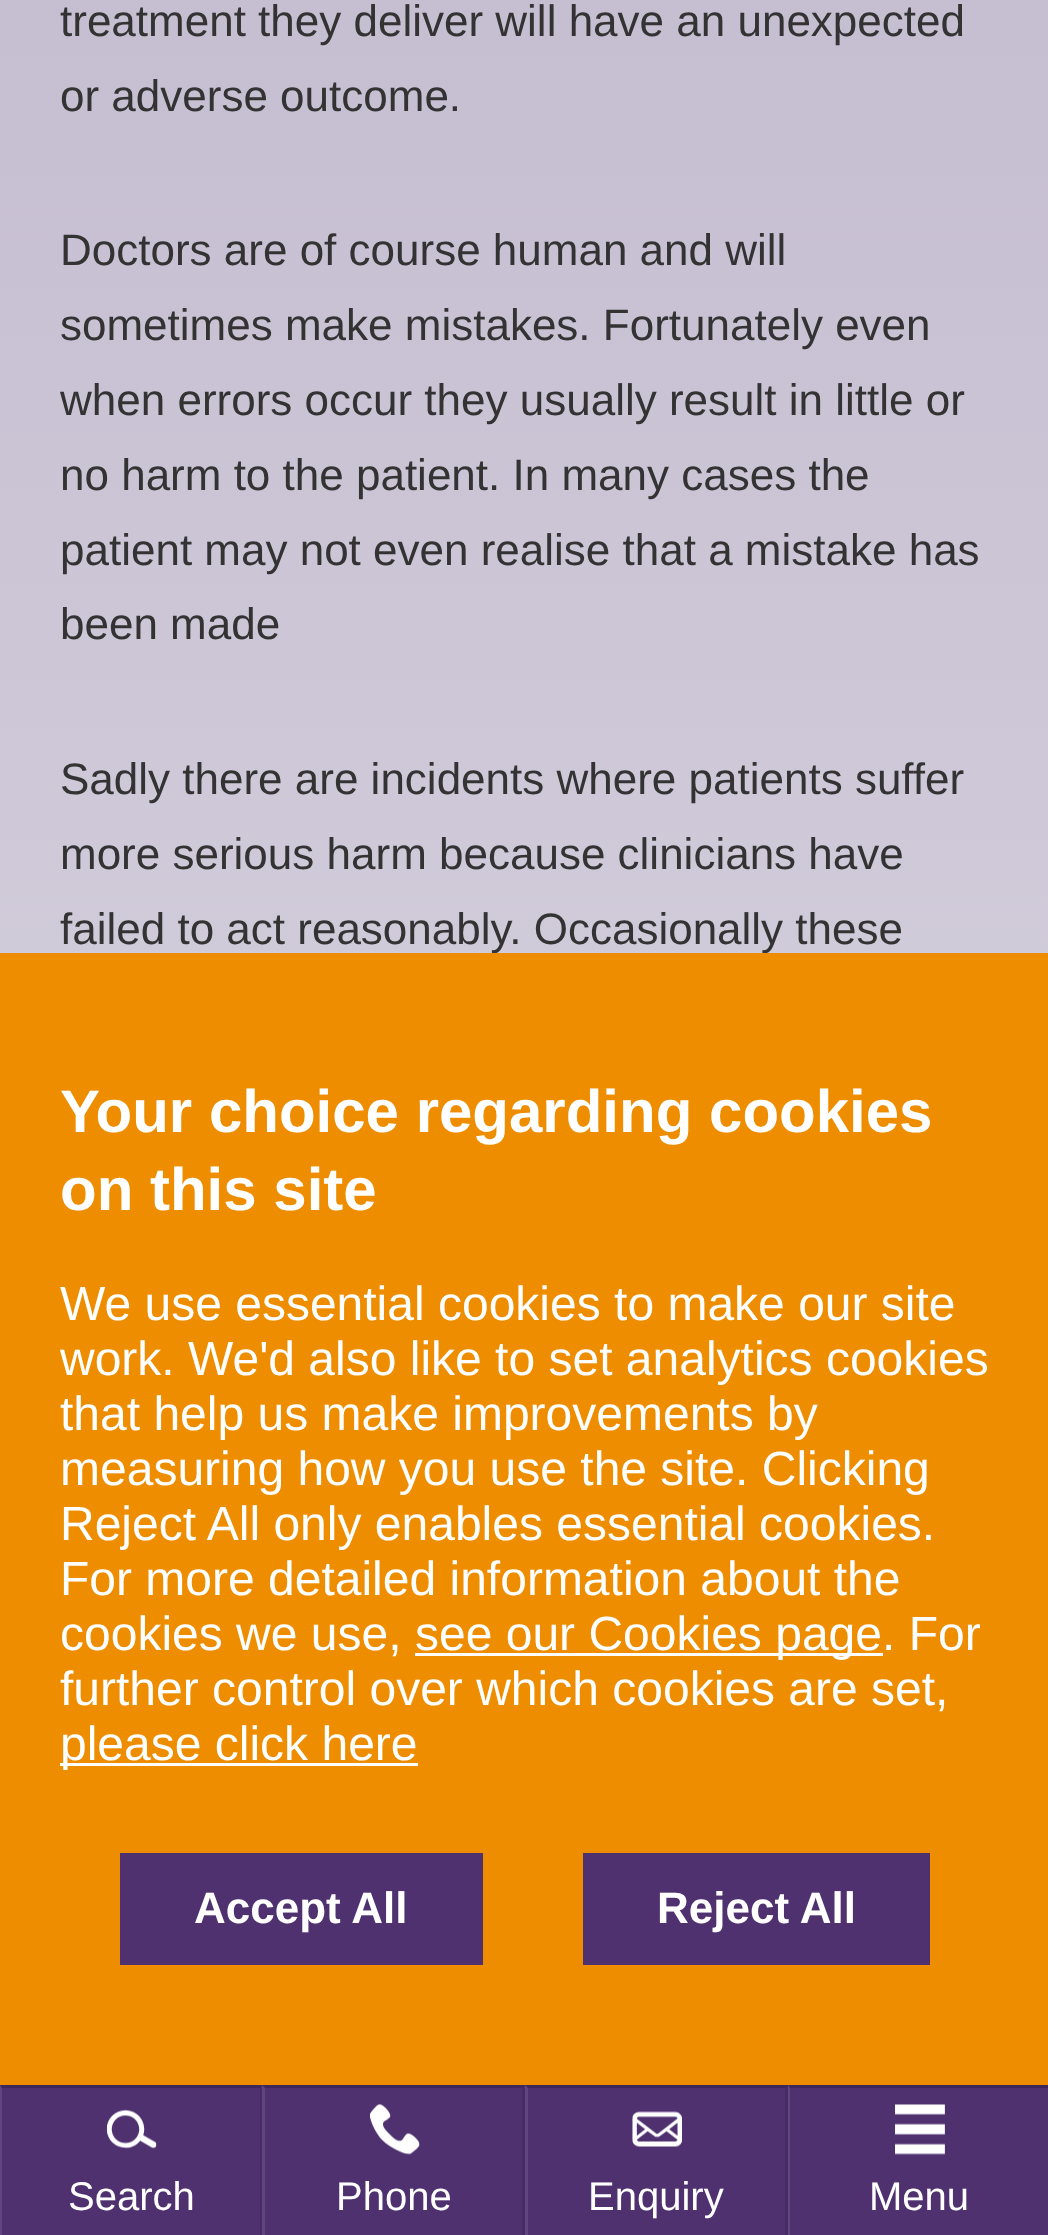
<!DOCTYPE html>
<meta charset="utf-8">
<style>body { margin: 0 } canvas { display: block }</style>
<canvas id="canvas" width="1048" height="2235"></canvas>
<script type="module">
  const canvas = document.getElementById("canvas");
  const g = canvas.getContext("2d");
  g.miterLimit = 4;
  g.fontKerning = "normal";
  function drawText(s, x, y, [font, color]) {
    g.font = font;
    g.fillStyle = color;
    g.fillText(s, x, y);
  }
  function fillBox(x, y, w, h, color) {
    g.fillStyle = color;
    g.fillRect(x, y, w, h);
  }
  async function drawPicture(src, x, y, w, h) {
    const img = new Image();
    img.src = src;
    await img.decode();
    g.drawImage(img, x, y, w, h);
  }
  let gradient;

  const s1 = ["44px Liberation Sans", "#333333"];
  const s2 = ["bold 60px Liberation Sans", "#FFFFFF"];
  const s3 = ["48px Liberation Sans", "#FFFFFF"];
  const s4 = ["bold 44px Liberation Sans", "#FFFFFF"];
  const s5 = ["40px Liberation Sans", "#FFFFFF"];

  fillBox(0, 0, 1048, 2235, "#FFFFFF");
  gradient = g.createLinearGradient(525, -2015, 525, 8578);
  gradient.addColorStop(0.01, "#4F3170");
  gradient.addColorStop(0.06, "#B7ACC5");
  gradient.addColorStop(0.3, "#D2CDDB");
  g.fillStyle = gradient;
  g.fillRect(0, 0, 1048, 953);
  drawText("treatment they deliver will have an unexpected", 60, 36, s1);
  drawText("or adverse outcome.", 60, 111, s1);
  drawText("Doctors are of course human and will", 60, 265, s1);
  drawText("sometimes make mistakes. Fortunately even", 60, 340, s1);
  drawText("when errors occur they usually result in little or", 60, 415, s1);
  drawText("no harm to the patient. In many cases the", 60, 490, s1);
  drawText("patient may not even realise that a mistake has", 60, 565, s1);
  drawText("been made", 60, 639, s1);
  drawText("Sadly there are incidents where patients suffer", 60, 794, s1);
  drawText("more serious harm because clinicians have", 60, 869, s1);
  drawText("failed to act reasonably. Occasionally these", 60, 944, s1);
  fillBox(0, 2085, 1048, 150, "#4F3170");
  fillBox(0, 953, 1048, 1132, "#EE8D00");
  drawText("Your choice regarding cookies", 60, 1132, s2);
  drawText("on this site", 60, 1210, s2);
  drawText("We use essential cookies to make our site", 60, 1320, s3);
  drawText("work. We'd also like to set analytics cookies", 60, 1375, s3);
  drawText("that help us make improvements by", 60, 1430, s3);
  drawText("measuring how you use the site. Clicking", 60, 1485, s3);
  drawText("Reject All only enables essential cookies.", 60, 1540, s3);
  drawText("For more detailed information about the", 60, 1595, s3);
  drawText("cookies we use,", 60, 1650, s3);
  fillBox(415, 1653, 468, 3, "#FFFFFF");
  drawText("see our Cookies page. For", 415, 1650, s3);
  drawText("further control over which cookies are set,", 60, 1705, s3);
  fillBox(60, 1763, 358, 3, "#FFFFFF");
  drawText("please click here", 60, 1760, s3);
  fillBox(120, 1853, 363, 112, "#4F3170");
  drawText("Accept All", 194, 1923, s4);
  fillBox(583, 1853, 347, 112, "#4F3170");
  drawText("Reject All", 657, 1923, s4);
  g.fillStyle = "#3F275A";
  g.beginPath();
  g.moveTo(0, 2085);
  g.lineTo(262, 2085);
  g.lineTo(260, 2088);
  g.lineTo(2, 2088);
  g.closePath();
  g.fill();
  g.fillStyle = "rgba(0, 0, 0, 0.1)";
  g.beginPath();
  g.moveTo(262, 2085);
  g.lineTo(262, 2235);
  g.lineTo(260, 2235);
  g.lineTo(260, 2088);
  g.closePath();
  g.fill();
  g.fillStyle = "rgba(255, 255, 255, 0.1)";
  g.beginPath();
  g.moveTo(0, 2235);
  g.lineTo(0, 2085);
  g.lineTo(2, 2088);
  g.lineTo(2, 2235);
  g.closePath();
  g.fill();
  await drawPicture("pic1.png", 106, 2109, 51, 40);
  drawText("Search", 68, 2210, s5);
  g.fillStyle = "#3F275A";
  g.beginPath();
  g.moveTo(262, 2085);
  g.lineTo(525, 2085);
  g.lineTo(522, 2088);
  g.lineTo(265, 2088);
  g.closePath();
  g.fill();
  g.fillStyle = "rgba(0, 0, 0, 0.1)";
  g.beginPath();
  g.moveTo(525, 2085);
  g.lineTo(525, 2235);
  g.lineTo(522, 2235);
  g.lineTo(522, 2088);
  g.closePath();
  g.fill();
  g.fillStyle = "rgba(255, 255, 255, 0.1)";
  g.beginPath();
  g.moveTo(262, 2235);
  g.lineTo(262, 2085);
  g.lineTo(265, 2088);
  g.lineTo(265, 2235);
  g.closePath();
  g.fill();
  await drawPicture("pic2.png", 369, 2104, 51, 51);
  drawText("Phone", 336, 2210, s5);
  g.fillStyle = "#3F275A";
  g.beginPath();
  g.moveTo(525, 2085);
  g.lineTo(788, 2085);
  g.lineTo(785, 2088);
  g.lineTo(528, 2088);
  g.closePath();
  g.fill();
  g.fillStyle = "rgba(0, 0, 0, 0.1)";
  g.beginPath();
  g.moveTo(788, 2085);
  g.lineTo(788, 2235);
  g.lineTo(785, 2235);
  g.lineTo(785, 2088);
  g.closePath();
  g.fill();
  g.fillStyle = "rgba(255, 255, 255, 0.1)";
  g.beginPath();
  g.moveTo(525, 2235);
  g.lineTo(525, 2085);
  g.lineTo(528, 2088);
  g.lineTo(528, 2235);
  g.closePath();
  g.fill();
  await drawPicture("pic3.png", 632, 2111, 50, 36);
  drawText("Enquiry", 588, 2210, s5);
  g.fillStyle = "#3F275A";
  g.beginPath();
  g.moveTo(788, 2085);
  g.lineTo(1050, 2085);
  g.lineTo(1048, 2088);
  g.lineTo(790, 2088);
  g.closePath();
  g.fill();
  g.fillStyle = "rgba(255, 255, 255, 0.1)";
  g.beginPath();
  g.moveTo(788, 2235);
  g.lineTo(788, 2085);
  g.lineTo(790, 2088);
  g.lineTo(790, 2235);
  g.closePath();
  g.fill();
  await drawPicture("pic4.png", 895, 2104, 50, 51);
  drawText("Menu", 869, 2210, s5);
</script>
